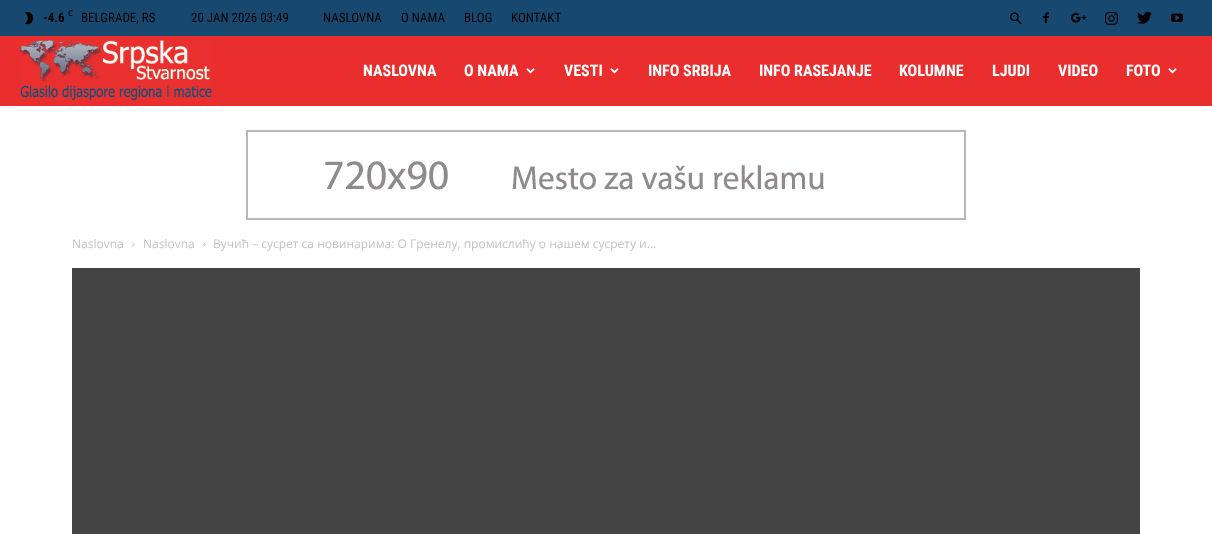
<!DOCTYPE html>
<meta charset="utf-8">
<style>body { margin: 0 } canvas { display: block }</style>
<canvas id="canvas" width="1212" height="534"></canvas>
<script type="module">
  const canvas = document.getElementById("canvas");
  const g = canvas.getContext("2d");
  g.miterLimit = 4;
  g.fontKerning = "normal";
  function drawText(s, x, y, [font, color]) {
    g.font = font;
    g.fillStyle = color;
    g.fillText(s, x, y);
  }
  function fillBox(x, y, w, h, color) {
    g.fillStyle = color;
    g.fillRect(x, y, w, h);
  }
  async function drawPicture(src, x, y, w, h) {
    const img = new Image();
    img.src = src;
    await img.decode();
    g.drawImage(img, x, y, w, h);
  }

  const s1 = ["bold 13px Roboto Condensed", "#000000"];
  const s2 = ["600 8px Open Sans", "#000000"];
  const s3 = ["13px Roboto Condensed", "#000000"];
  const s4 = ["bold 16px Roboto Condensed", "#FFFFFF"];
  const s5 = ["12px Open Sans", "#C3C3C3"];

  fillBox(0, 0, 1212, 534, "#FFFFFF");
  fillBox(0, 0, 1212, 36, "#174970");
  await drawPicture("pic1.png", 25, 12, 9, 13);
  drawText("-4.6", 43, 22, s1);
  drawText("C", 68, 16, s2);
  drawText("BELGRADE, RS", 81, 22, s3);
  drawText("20 JAN 2026 03:49", 191, 22, s3);
  drawText("NASLOVNA", 323, 22, s3);
  drawText("O NAMA", 401, 22, s3);
  drawText("BLOG", 464, 22, s3);
  drawText("KONTAKT", 511, 22, s3);
  await drawPicture("pic2.png", 1010, 12, 12, 12);
  await drawPicture("pic3.png", 1043, 12, 6, 12);
  await drawPicture("pic4.png", 1071, 13, 16, 10);
  await drawPicture("pic5.png", 1105, 12, 13, 13);
  await drawPicture("pic6.png", 1137, 11, 15, 13);
  await drawPicture("pic7.png", 1171, 13, 12, 9);
  fillBox(0, 36, 1212, 70, "#EA2E2E");
  await drawPicture("pic8.png", 20, 40, 192, 61);
  drawText("NASLOVNA", 363, 76, s4);
  drawText("O NAMA", 464, 76, s4);
  await drawPicture("pic9.png", 526, 68, 9, 6);
  drawText("VESTI", 564, 76, s4);
  await drawPicture("pic9.png", 610, 68, 9, 6);
  drawText("INFO SRBIJA", 648, 76, s4);
  drawText("INFO RASEJANJE", 759, 76, s4);
  drawText("KOLUMNE", 899, 76, s4);
  drawText("LJUDI", 992, 76, s4);
  drawText("VIDEO", 1058, 76, s4);
  drawText("FOTO", 1126, 76, s4);
  await drawPicture("pic9.png", 1168, 68, 9, 6);
  await drawPicture("pic10.png", 246, 130, 720, 90);
  drawText("Naslovna", 72, 248, s5);
  await drawPicture("pic11.png", 132, 242, 3, 5);
  drawText("Naslovna", 143, 248, s5);
  await drawPicture("pic11.png", 203, 242, 3, 5);
  drawText("Вучић – сусрет са новинарима: О Гренелу, промислићу о нашем сусрету и...", 213, 248, s5);
  fillBox(72, 268, 1068, 266, "#444444");
</script>
